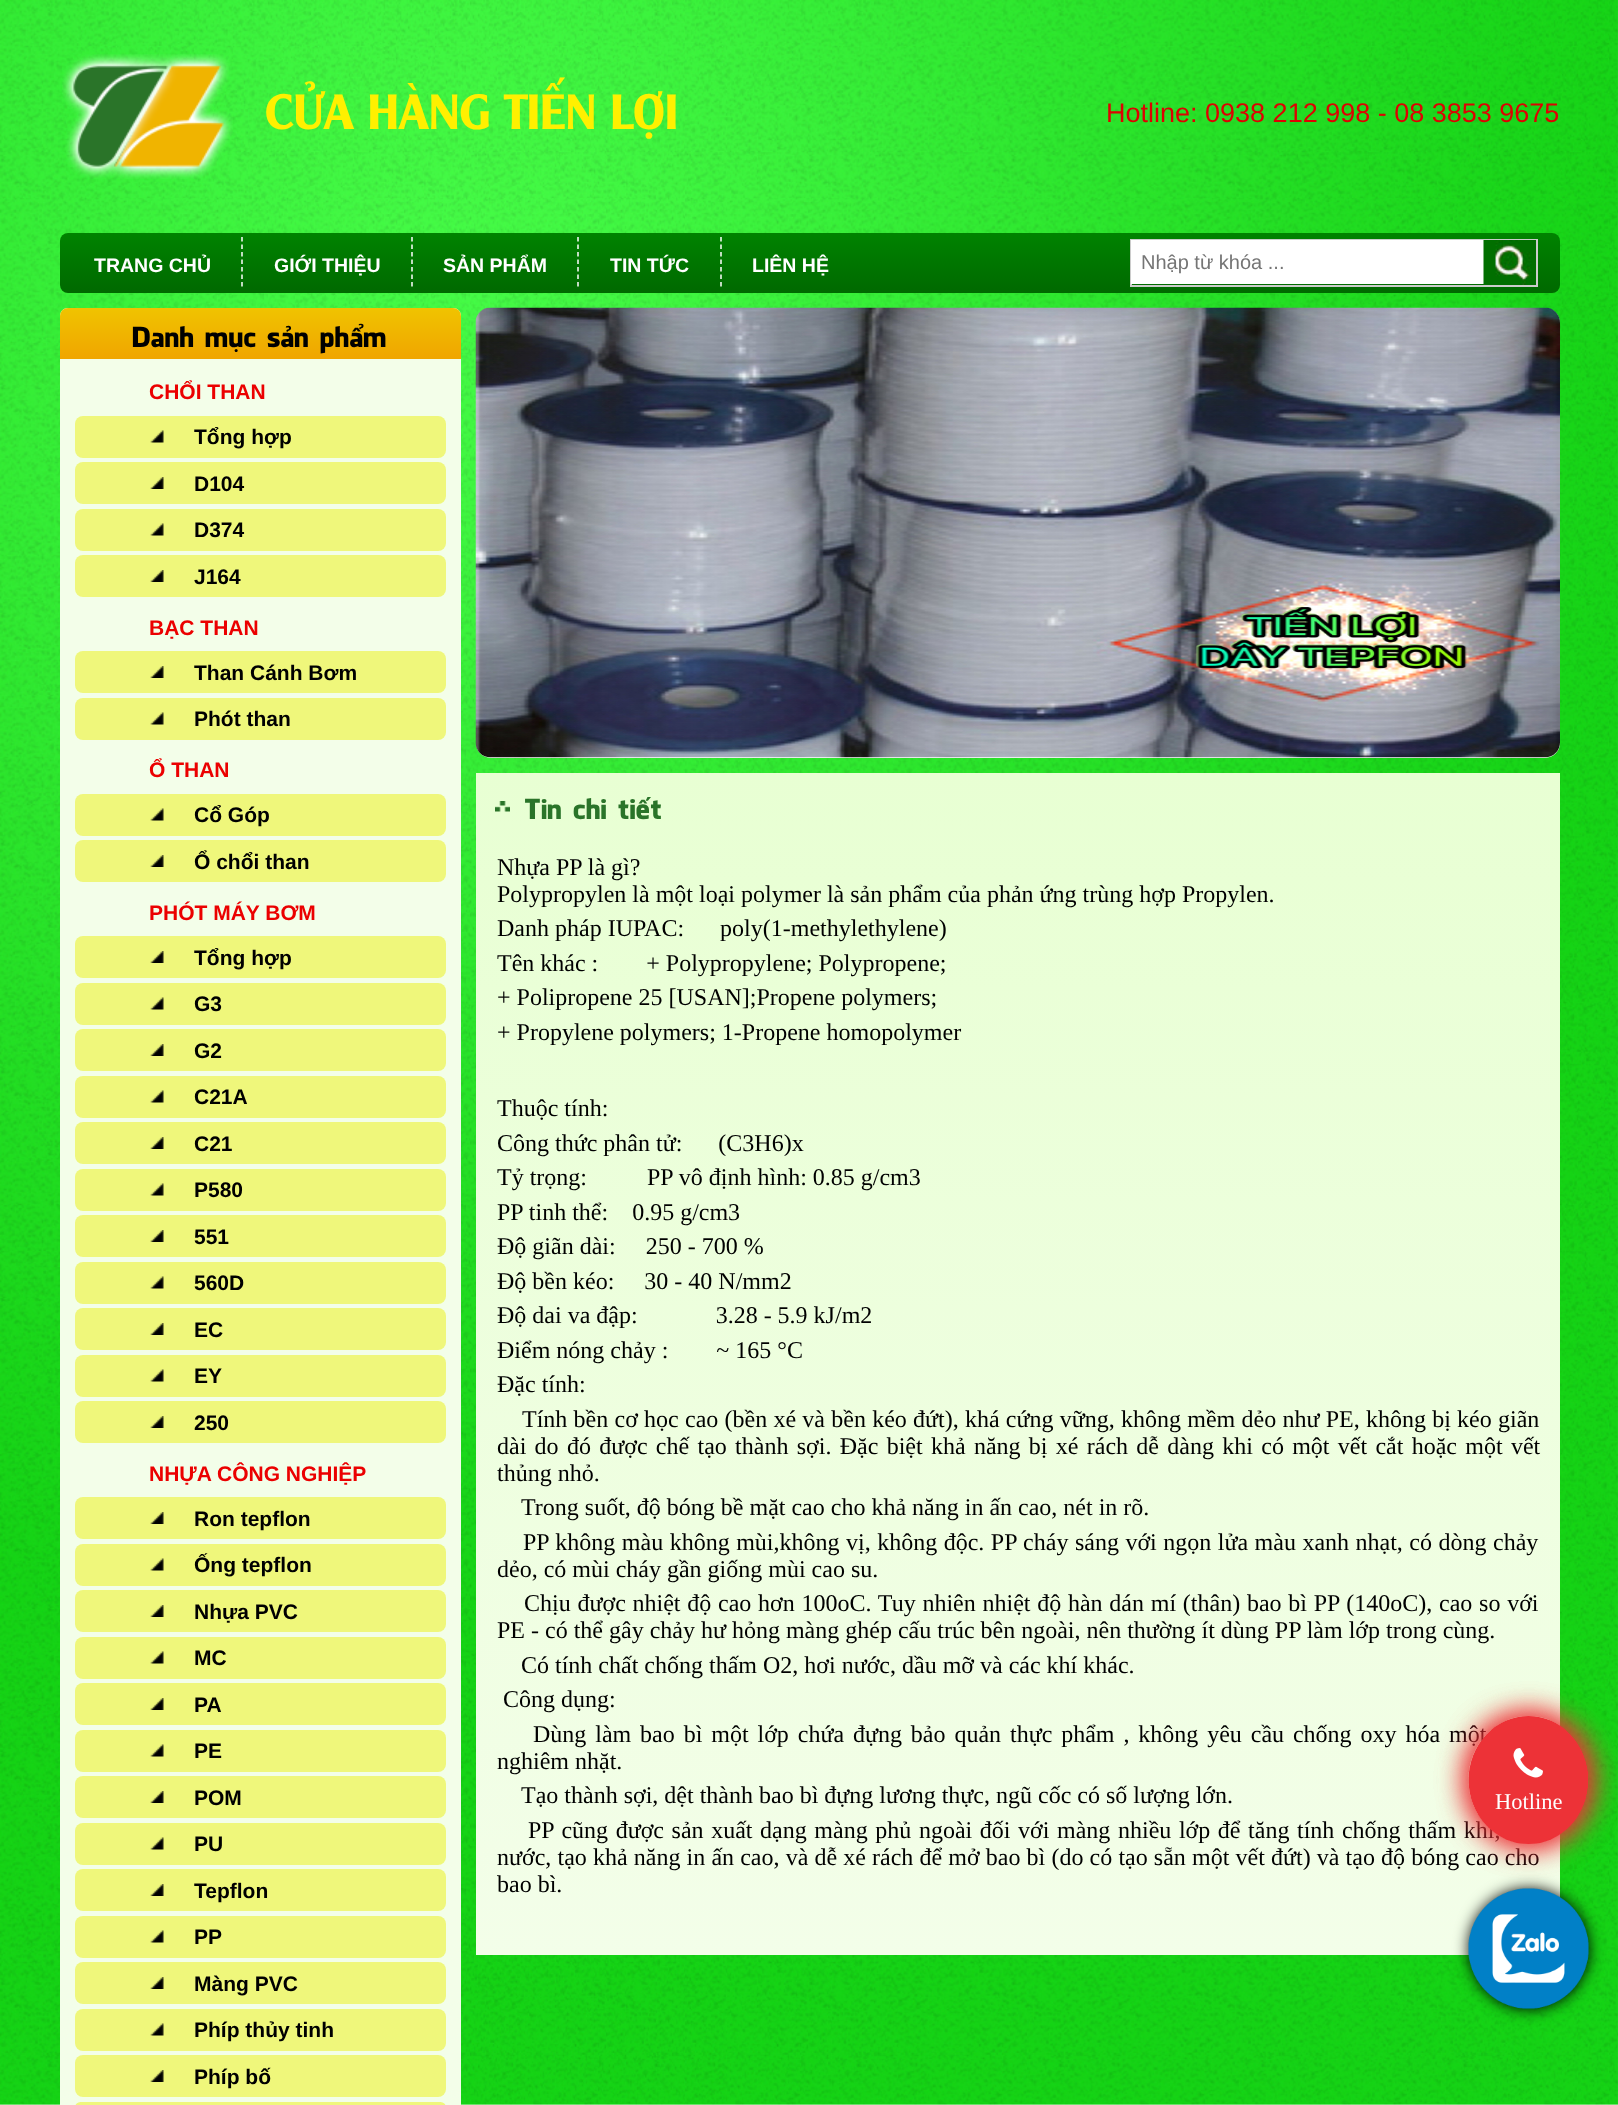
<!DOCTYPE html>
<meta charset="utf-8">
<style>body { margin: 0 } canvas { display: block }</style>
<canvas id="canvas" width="1618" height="2105"></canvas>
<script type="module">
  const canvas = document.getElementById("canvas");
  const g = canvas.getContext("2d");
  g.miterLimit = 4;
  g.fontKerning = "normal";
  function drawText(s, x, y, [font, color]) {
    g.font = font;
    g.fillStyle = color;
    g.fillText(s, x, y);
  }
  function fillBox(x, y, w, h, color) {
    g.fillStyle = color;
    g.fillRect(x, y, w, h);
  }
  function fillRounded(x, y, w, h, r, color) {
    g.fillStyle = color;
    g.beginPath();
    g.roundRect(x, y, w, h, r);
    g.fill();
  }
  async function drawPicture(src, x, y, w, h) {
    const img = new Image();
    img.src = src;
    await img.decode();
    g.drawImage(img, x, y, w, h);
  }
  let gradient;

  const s1 = ["48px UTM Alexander", "#FFF000"];
  const s2 = ["27px Liberation Sans", "#DE0202"];
  const s3 = ["bold 19.5px Liberation Sans", "#FFFFFF"];
  const s4 = ["20px Liberation Sans", "#757575"];
  const s5 = ["27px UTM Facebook", "#000000"];
  const s6 = ["bold 21px Liberation Sans", "#EB0000"];
  const s7 = ["bold 21px Liberation Sans", "#000000"];
  const s8 = ["27px UTM Facebook", "#2A7429"];
  const s9 = ["24px Liberation Serif", "#000000"];
  const s10 = ["22.5px Liberation Serif", "#FFFFFF"];

  fillBox(0, 0, 1618, 2105, "#FFFFFF");
  await drawPicture("pic1.png", 0, 0, 1618, 2105);
  await drawPicture("pic2.png", 62, 54, 171, 125);
  drawText("CỬA HÀNG TIẾN LỢI", 265, 129, s1);
  drawText("Hotline: 0938 212 998 - 08 3853 9675", 1106, 122, s2);
  gradient = g.createLinearGradient(810, 232, 810, 293);
  gradient.addColorStop(0, "#008300");
  gradient.addColorStop(1, "#006900");
  g.fillStyle = gradient;
  g.beginPath();
  g.roundRect(60, 233, 1500, 60, 8);
  g.fill();
  drawText("TRANG CHỦ", 94, 272, s3);
  g.beginPath();
  g.moveTo(242, 237);
  g.lineTo(242, 286.5);
  g.strokeStyle = "#FFFFFF";
  g.lineWidth = 1.5;
  g.setLineDash([4.5, 3]);
  g.stroke();
  drawText("GIỚI THIỆU", 274, 272, s3);
  g.beginPath();
  g.moveTo(412, 237);
  g.lineTo(412, 286.5);
  g.stroke();
  drawText("SẢN PHẨM", 443, 272, s3);
  g.beginPath();
  g.moveTo(578, 237);
  g.lineTo(578, 286.5);
  g.stroke();
  drawText("TIN TỨC", 610, 272, s3);
  g.beginPath();
  g.moveTo(721, 237);
  g.lineTo(721, 286.5);
  g.stroke();
  drawText("LIÊN HỆ", 752, 272, s3);
  g.strokeStyle = "#CCCCCC";
  g.lineWidth = 2;
  g.setLineDash([]);
  g.strokeRect(1131, 240, 406, 46);
  fillBox(1131, 240, 353, 44, "#FFFFFF");
  drawText("Nhập từ khóa ...", 1141, 269, s4);
  await drawPicture("pic3.png", 1483, 240, 53, 45);
  g.fillStyle = "#F3FEE9";
  g.beginPath();
  g.moveTo(68, 308);
  g.lineTo(453, 308);
  g.bezierCurveTo(457.5, 308, 461, 311.5, 461, 316);
  g.lineTo(461, 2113);
  g.lineTo(60, 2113);
  g.lineTo(60, 316);
  g.bezierCurveTo(60, 311.5, 63.5, 308, 68, 308);
  g.closePath();
  g.fill();
  gradient = g.createLinearGradient(260, 307, 260, 359);
  gradient.addColorStop(0, "#F0C400");
  gradient.addColorStop(1, "#F0A500");
  g.fillStyle = gradient;
  g.beginPath();
  g.roundRect(60, 308, 401, 51, [8, 8, 0, 0]);
  g.fill();
  drawText("Danh mục sản phẩm", 132, 347, s5);
  drawText("CHỔI THAN", 149, 399, s6);
  fillRounded(75, 416, 371, 42, 8, "#EFF77B");
  await drawPicture("pic4.png", 150, 430, 14, 13);
  drawText("Tổng hợp", 194, 444, s7);
  fillRounded(75, 462, 371, 42, 8, "#EFF77B");
  await drawPicture("pic5.png", 150, 477, 14, 12);
  drawText("D104", 194, 491, s7);
  fillRounded(75, 509, 371, 42, 8, "#EFF77B");
  await drawPicture("pic4.png", 150, 523, 14, 13);
  drawText("D374", 194, 537, s7);
  fillRounded(75, 555, 371, 42, 8, "#EFF77B");
  await drawPicture("pic5.png", 150, 570, 14, 12);
  drawText("J164", 194, 584, s7);
  drawText("BẠC THAN", 149, 635, s6);
  fillRounded(75, 651, 371, 42, 8, "#EFF77B");
  await drawPicture("pic5.png", 150, 666, 14, 12);
  drawText("Than Cánh Bơm", 194, 680, s7);
  fillRounded(75, 698, 371, 42, 8, "#EFF77B");
  await drawPicture("pic4.png", 150, 712, 14, 13);
  drawText("Phót than", 194, 726, s7);
  drawText("Ổ THAN", 149, 777, s6);
  fillRounded(75, 794, 371, 42, 8, "#EFF77B");
  await drawPicture("pic4.png", 150, 808, 14, 13);
  drawText("Cổ Góp", 194, 822, s7);
  fillRounded(75, 840, 371, 42, 8, "#EFF77B");
  await drawPicture("pic5.png", 150, 855, 14, 12);
  drawText("Ổ chổi than", 194, 869, s7);
  drawText("PHÓT MÁY BƠM", 149, 920, s6);
  fillRounded(75, 936, 371, 42, 8, "#EFF77B");
  await drawPicture("pic5.png", 150, 951, 14, 12);
  drawText("Tổng hợp", 194, 965, s7);
  fillRounded(75, 983, 371, 42, 8, "#EFF77B");
  await drawPicture("pic4.png", 150, 997, 14, 13);
  drawText("G3", 194, 1011, s7);
  fillRounded(75, 1029, 371, 42, 8, "#EFF77B");
  await drawPicture("pic5.png", 150, 1044, 14, 12);
  drawText("G2", 194, 1058, s7);
  fillRounded(75, 1076, 371, 42, 8, "#EFF77B");
  await drawPicture("pic4.png", 150, 1090, 14, 13);
  drawText("C21A", 194, 1104, s7);
  fillRounded(75, 1122, 371, 42, 8, "#EFF77B");
  await drawPicture("pic5.png", 150, 1137, 14, 12);
  drawText("C21", 194, 1151, s7);
  fillRounded(75, 1169, 371, 42, 8, "#EFF77B");
  await drawPicture("pic4.png", 150, 1183, 14, 13);
  drawText("P580", 194, 1197, s7);
  fillRounded(75, 1215, 371, 42, 8, "#EFF77B");
  await drawPicture("pic5.png", 150, 1230, 14, 12);
  drawText("551", 194, 1244, s7);
  fillRounded(75, 1262, 371, 42, 8, "#EFF77B");
  await drawPicture("pic4.png", 150, 1276, 14, 13);
  drawText("560D", 194, 1290, s7);
  fillRounded(75, 1308, 371, 42, 8, "#EFF77B");
  await drawPicture("pic5.png", 150, 1323, 14, 12);
  drawText("EC", 194, 1337, s7);
  fillRounded(75, 1355, 371, 42, 8, "#EFF77B");
  await drawPicture("pic4.png", 150, 1369, 14, 13);
  drawText("EY", 194, 1383, s7);
  fillRounded(75, 1401, 371, 42, 8, "#EFF77B");
  await drawPicture("pic5.png", 150, 1416, 14, 12);
  drawText("250", 194, 1430, s7);
  drawText("NHỰA CÔNG NGHIỆP", 149, 1481, s6);
  fillRounded(75, 1497, 371, 42, 8, "#EFF77B");
  await drawPicture("pic5.png", 150, 1512, 14, 12);
  drawText("Ron tepflon", 194, 1526, s7);
  fillRounded(75, 1544, 371, 42, 8, "#EFF77B");
  await drawPicture("pic4.png", 150, 1558, 14, 13);
  drawText("Ống tepflon", 194, 1572, s7);
  fillRounded(75, 1590, 371, 42, 8, "#EFF77B");
  await drawPicture("pic5.png", 150, 1605, 14, 12);
  drawText("Nhựa PVC", 194, 1619, s7);
  fillRounded(75, 1637, 371, 42, 8, "#EFF77B");
  await drawPicture("pic4.png", 150, 1651, 14, 13);
  drawText("MC", 194, 1665, s7);
  fillRounded(75, 1683, 371, 42, 8, "#EFF77B");
  await drawPicture("pic5.png", 150, 1698, 14, 12);
  drawText("PA", 194, 1712, s7);
  fillRounded(75, 1730, 371, 42, 8, "#EFF77B");
  await drawPicture("pic4.png", 150, 1744, 14, 13);
  drawText("PE", 194, 1758, s7);
  fillRounded(75, 1776, 371, 42, 8, "#EFF77B");
  await drawPicture("pic5.png", 150, 1791, 14, 12);
  drawText("POM", 194, 1805, s7);
  fillRounded(75, 1823, 371, 42, 8, "#EFF77B");
  await drawPicture("pic4.png", 150, 1837, 14, 13);
  drawText("PU", 194, 1851, s7);
  fillRounded(75, 1869, 371, 42, 8, "#EFF77B");
  await drawPicture("pic5.png", 150, 1884, 14, 12);
  drawText("Tepflon", 194, 1898, s7);
  fillRounded(75, 1916, 371, 42, 8, "#EFF77B");
  await drawPicture("pic4.png", 150, 1930, 14, 13);
  drawText("PP", 194, 1944, s7);
  fillRounded(75, 1962, 371, 42, 8, "#EFF77B");
  await drawPicture("pic5.png", 150, 1977, 14, 12);
  drawText("Màng PVC", 194, 1991, s7);
  fillRounded(75, 2009, 371, 42, 8, "#EFF77B");
  await drawPicture("pic4.png", 150, 2023, 14, 13);
  drawText("Phíp thủy tinh", 194, 2037, s7);
  fillRounded(75, 2055, 371, 42, 8, "#EFF77B");
  await drawPicture("pic5.png", 150, 2070, 14, 12);
  drawText("Phíp bố", 194, 2084, s7);
  fillRounded(75, 2102, 371, 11, 8, "#EFF77B");
  fillRounded(476, 308, 1084, 450, 15, "#FFFFFF");
  await drawPicture("pic6.png", 475, 307, 1085, 451);
  gradient = g.createLinearGradient(1018, 773, 1018, 1955);
  gradient.addColorStop(0, "#E8FFD3");
  gradient.addColorStop(1, "#F3FEE9");
  g.fillStyle = gradient;
  g.fillRect(476, 773, 1084, 1182);
  await drawPicture("pic7.png", 495, 801, 15, 11);
  drawText("Tin chi tiết", 524, 819, s8);
  drawText("Nhựa PP là gì?", 497, 875, s9);
  drawText("Polypropylen là một loại polymer là sản phẩm của phản ứng trùng hợp Propylen.", 497, 902, s9);
  drawText("Danh pháp IUPAC:      poly(1-methylethylene)", 497, 936, s9);
  drawText("Tên khác :        + Polypropylene; Polypropene;", 497, 971, s9);
  drawText("+ Polipropene 25 [USAN];Propene polymers;", 497, 1005, s9);
  drawText("+ Propylene polymers; 1-Propene homopolymer", 497, 1040, s9);
  drawText("Thuộc tính:", 497, 1116, s9);
  drawText("Công thức phân tử:      (C3H6)x", 497, 1151, s9);
  drawText("Tỷ trọng:          PP vô định hình: 0.85 g/cm3", 497, 1185, s9);
  drawText("PP tinh thể:    0.95 g/cm3", 497, 1220, s9);
  drawText("Độ giãn dài:     250 - 700 %", 497, 1254, s9);
  drawText("Độ bền kéo:     30 - 40 N/mm2", 497, 1289, s9);
  drawText("Độ dai va đập:             3.28 - 5.9 kJ/m2", 497, 1323, s9);
  drawText("Điểm nóng chảy :        ~ 165 °C", 497, 1358, s9);
  drawText("Đặc tính:", 497, 1392, s9);
  g.wordSpacing = "0.25px";
  drawText("Tính bền cơ học cao (bền xé và bền kéo đứt), khá cứng vững, không mềm dẻo như PE, không bị kéo giãn", 522, 1427, s9);
  g.wordSpacing = "2.3px";
  drawText("dài do đó được chế tạo thành sợi. Đặc biệt khả năng bị xé rách dễ dàng khi có một vết cắt hoặc một vết", 497, 1454, s9);
  g.wordSpacing = "0px";
  drawText("thủng nhỏ.", 497, 1481, s9);
  drawText("Trong suốt, độ bóng bề mặt cao cho khả năng in ấn cao, nét in rõ.", 521, 1515, s9);
  g.wordSpacing = "0.5px";
  drawText("PP không màu không mùi,không vị, không độc. PP cháy sáng với ngọn lửa màu xanh nhạt, có dòng chảy", 523, 1550, s9);
  g.wordSpacing = "0px";
  drawText("dẻo, có mùi cháy gần giống mùi cao su.", 497, 1577, s9);
  g.wordSpacing = "0.75px";
  drawText("Chịu được nhiệt độ cao hơn 100oC. Tuy nhiên nhiệt độ hàn dán mí (thân) bao bì PP (140oC), cao so với", 524, 1611, s9);
  g.wordSpacing = "0px";
  drawText("PE - có thể gây chảy hư hỏng màng ghép cấu trúc bên ngoài, nên thường ít dùng PP làm lớp trong cùng.", 497, 1638, s9);
  drawText("Có tính chất chống thấm O2, hơi nước, dầu mỡ và các khí khác.", 521, 1673, s9);
  drawText("Công dụng:", 503, 1707, s9);
  g.wordSpacing = "2.9px";
  drawText("Dùng làm bao bì một lớp chứa đựng bảo quản thực phẩm , không yêu cầu chống oxy hóa một", 533, 1742, s9);
  g.wordSpacing = "0px";
  drawText("nghiêm nhặt.", 497, 1769, s9);
  drawText("Tạo thành sợi, dệt thành bao bì đựng lương thực, ngũ cốc có số lượng lớn.", 521, 1803, s9);
  g.wordSpacing = "1.6px";
  drawText("PP cũng được sản xuất dạng màng phủ ngoài đối với màng nhiều lớp để tăng tính chống thấm khí,", 528, 1838, s9);
  g.wordSpacing = "0.15px";
  drawText("nước, tạo khả năng in ấn cao, và dễ xé rách để mở bao bì (do có tạo sẵn một vết đứt) và tạo độ bóng cao cho", 497, 1865, s9);
  g.wordSpacing = "0px";
  drawText("bao bì.", 497, 1892, s9);
  g.fillStyle = "#ED3237";
  g.beginPath();
  g.ellipse(1528.5, 1780, 60, 64, 0, 0, Math.PI * 2);
  g.fill();
  g.fillStyle = "#000000";
  g.filter = "blur(7.5px)";
  g.beginPath();
  g.roundRect(1469, 1889, 120, 120, 60);
  g.fill();
  g.filter = "none";
  await drawPicture("pic9.png", 1468, 1888, 121, 121);
  g.save();
  g.beginPath();
  g.moveTo(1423, 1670);
  g.lineTo(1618, 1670);
  g.lineTo(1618, 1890);
  g.lineTo(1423, 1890);
  g.closePath();
  g.moveTo(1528.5, 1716);
  g.bezierCurveTo(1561.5, 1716, 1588.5, 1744.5, 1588.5, 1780);
  g.bezierCurveTo(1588.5, 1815, 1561.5, 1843.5, 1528.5, 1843.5);
  g.bezierCurveTo(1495.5, 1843.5, 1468.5, 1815, 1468.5, 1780);
  g.bezierCurveTo(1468.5, 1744.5, 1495.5, 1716, 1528.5, 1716);
  g.closePath();
  g.clip("evenodd");
  g.fillStyle = "#ED3237";
  g.filter = "blur(15px)";
  g.beginPath();
  g.roundRect(1469, 1716, 120, 128, 60);
  g.fill();
  g.filter = "none";
  g.restore();
  await drawPicture("pic8.png", 1513, 1748, 30, 30);
  g.save();
  g.beginPath();
  g.moveTo(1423, 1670);
  g.lineTo(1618, 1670);
  g.lineTo(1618, 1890);
  g.lineTo(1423, 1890);
  g.closePath();
  g.moveTo(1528.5, 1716);
  g.bezierCurveTo(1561.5, 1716, 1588.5, 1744.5, 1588.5, 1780);
  g.bezierCurveTo(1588.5, 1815, 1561.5, 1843.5, 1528.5, 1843.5);
  g.bezierCurveTo(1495.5, 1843.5, 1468.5, 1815, 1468.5, 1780);
  g.bezierCurveTo(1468.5, 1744.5, 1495.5, 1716, 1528.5, 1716);
  g.closePath();
  g.clip("evenodd");
  g.fillStyle = "#ED3237";
  g.filter = "blur(15px)";
  g.beginPath();
  g.roundRect(1469, 1716, 120, 128, 60);
  g.fill();
  g.filter = "none";
  g.restore();
  drawText("Hotline", 1495, 1809, s10);
</script>
